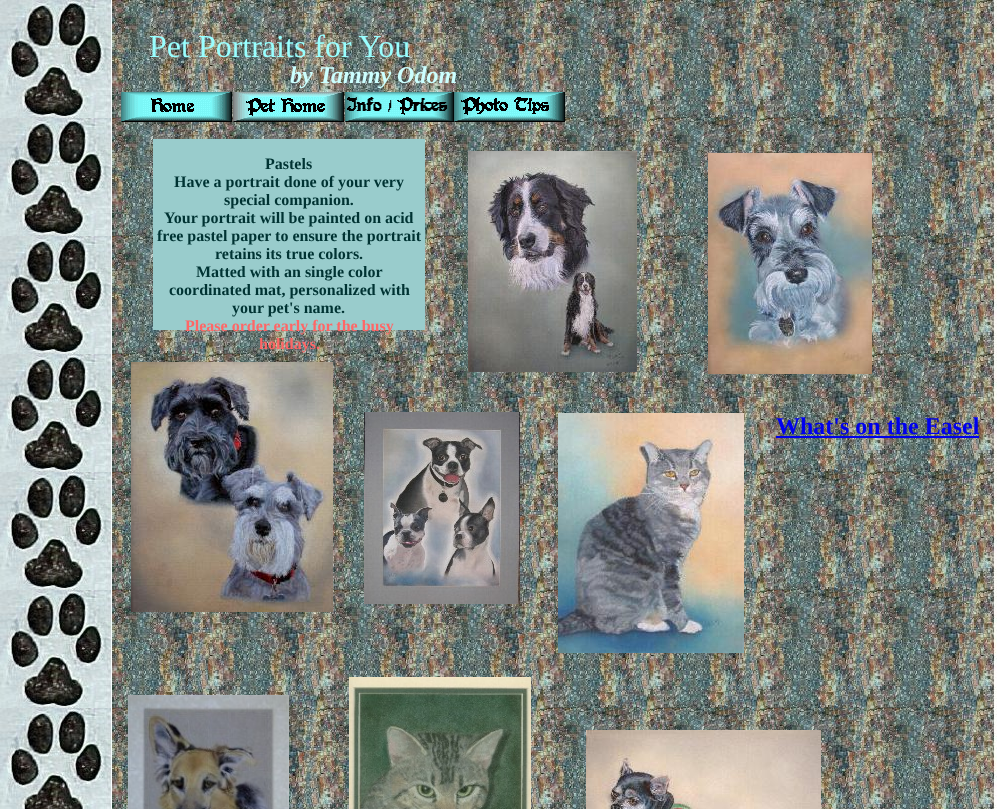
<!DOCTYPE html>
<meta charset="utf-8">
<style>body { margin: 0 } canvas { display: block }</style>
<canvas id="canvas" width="997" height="809"></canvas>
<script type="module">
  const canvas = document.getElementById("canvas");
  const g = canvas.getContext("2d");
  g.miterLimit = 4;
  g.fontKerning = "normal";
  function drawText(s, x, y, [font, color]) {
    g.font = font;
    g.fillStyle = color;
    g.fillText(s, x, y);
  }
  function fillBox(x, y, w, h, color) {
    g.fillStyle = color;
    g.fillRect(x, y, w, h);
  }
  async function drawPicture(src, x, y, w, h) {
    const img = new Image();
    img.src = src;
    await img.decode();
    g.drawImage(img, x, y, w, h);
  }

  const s1 = ["32px Liberation Serif", "#99FFFF"];
  const s2 = ["italic bold 24px Liberation Serif", "#CCFFFF"];
  const s3 = ["bold 16px Liberation Serif", "#003333"];
  const s4 = ["bold 16px Liberation Serif", "#FF6666"];
  const s5 = ["bold 24px Liberation Serif", "#0000EE"];

  fillBox(0, 0, 997, 809, "#FFFFFF");
  await drawPicture("pic1.png", 0, 0, 997, 809);
  drawText("Pet Portraits for You", 149, 57, s1);
  drawText("by Tammy Odom", 290, 83, s2);
  await drawPicture("pic2.png", 121, 92, 111, 30);
  await drawPicture("pic3.png", 233, 92, 111, 30);
  await drawPicture("pic4.png", 345, 92, 109, 30);
  await drawPicture("pic5.png", 454, 92, 111, 30);
  fillBox(153, 139, 272, 191, "#99CCCC");
  drawText("Pastels", 265, 169, s3);
  drawText("Have a portrait done of your very", 174, 187, s3);
  drawText("special companion.", 224, 205, s3);
  drawText("Your portrait will be painted on acid", 164, 223, s3);
  drawText("free pastel paper to ensure the portrait", 157, 241, s3);
  drawText("retains its true colors.", 215, 259, s3);
  drawText("Matted with an single color", 196, 277, s3);
  drawText("coordinated mat, personalized with", 169, 295, s3);
  drawText("your pet's name.", 232, 313, s3);
  drawText("Please order early for the busy", 185, 331, s4);
  drawText("holidays.", 259, 349, s4);
  await drawPicture("pic6.png", 468, 151, 169, 221);
  await drawPicture("pic7.png", 708, 153, 164, 221);
  await drawPicture("pic8.png", 131, 362, 202, 250);
  await drawPicture("pic9.png", 364, 412, 156, 192);
  await drawPicture("pic10.png", 558, 413, 186, 240);
  drawText("What's on the Easel", 776, 434, s5);
  fillBox(776, 436, 203, 2, "#0000EE");
  await drawPicture("pic11.png", 128, 695, 161, 114);
  await drawPicture("pic12.png", 349, 677, 182, 132);
  await drawPicture("pic13.png", 586, 730, 235, 79);
</script>
